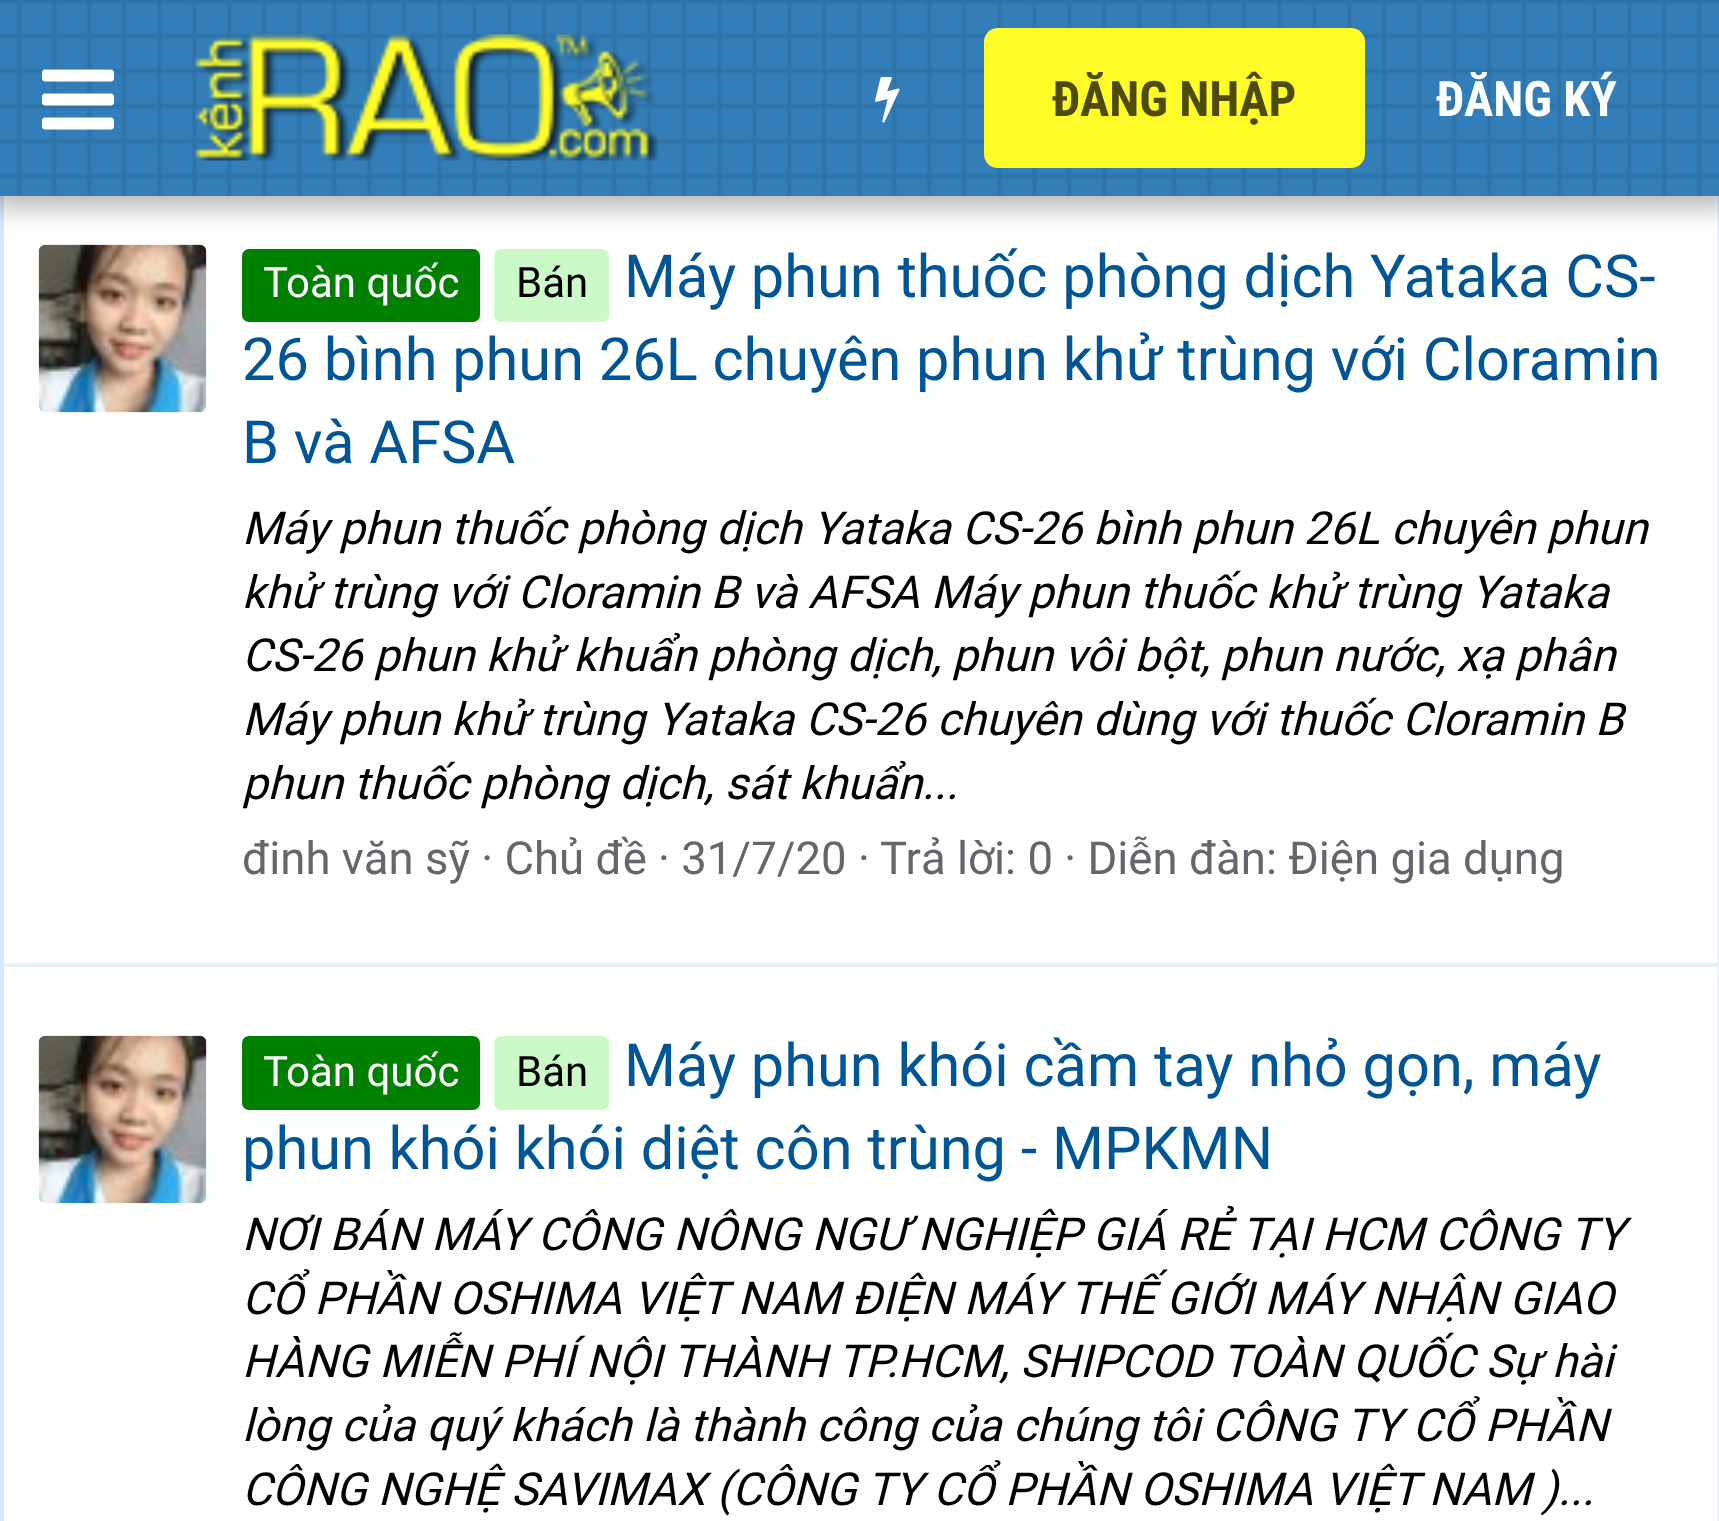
<!DOCTYPE html>
<meta charset="utf-8">
<style>body { margin: 0 } canvas { display: block }</style>
<canvas id="canvas" width="1719" height="1521"></canvas>
<script type="module">
  const canvas = document.getElementById("canvas");
  const g = canvas.getContext("2d");
  g.miterLimit = 4;
  g.fontKerning = "normal";
  function drawText(s, x, y, [font, color]) {
    g.font = font;
    g.fillStyle = color;
    g.fillText(s, x, y);
  }
  function fillBox(x, y, w, h, color) {
    g.fillStyle = color;
    g.fillRect(x, y, w, h);
  }
  function fillRounded(x, y, w, h, r, color) {
    g.fillStyle = color;
    g.beginPath();
    g.roundRect(x, y, w, h, r);
    g.fill();
  }
  async function drawPicture(src, x, y, w, h) {
    const img = new Image();
    img.src = src;
    await img.decode();
    g.drawImage(img, x, y, w, h);
  }

  const s1 = ["bold 49px Roboto Condensed", "#4D4C0D"];
  const s2 = ["bold 49px Roboto Condensed", "#FFFFFF"];
  const s3 = ["42px Roboto", "#FFFFFF"];
  const s4 = ["42px Roboto", "#000000"];
  const s5 = ["59.5px Roboto", "#005596"];
  const s6 = ["italic 45.5px Roboto", "#000000"];
  const s7 = ["45.5px Roboto", "#63666A"];

  fillBox(0, 0, 1719, 1521, "#FFFFFF");
  g.strokeStyle = "#D6E8FD";
  g.lineWidth = 4;
  g.strokeRect(2, -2, 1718, 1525);
  await drawPicture("pic5.png", 38, 244, 169, 169);
  fillRounded(242, 249, 238, 73, 7, "#008000");
  fillRounded(494, 249, 115, 73, 7, "#CCF9C8");
  g.fillStyle = "rgba(0, 0, 0, 0.3)";
  g.filter = "blur(14px)";
  g.beginPath();
  g.rect(-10, -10, 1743, 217);
  g.fill();
  g.filter = "none";
  await drawPicture("pic1.png", 0, 0, 1719, 196);
  await drawPicture("pic2.png", 42, 69, 72, 61);
  await drawPicture("pic3.png", 194, 34, 464, 127);
  await drawPicture("pic4.png", 875, 77, 25, 46);
  fillRounded(984, 28, 381, 140, 14, "#FFFC2A");
  drawText("ĐĂNG NHẬP", 1052, 116, s1);
  drawText("ĐĂNG KÝ", 1436, 116, s2);
  drawText("Toàn quốc", 263, 297, s3);
  drawText("Bán", 516, 297, s4);
  drawText("Máy phun thuốc phòng dịch Yataka CS-", 624, 297, s5);
  drawText("26 bình phun 26L chuyên phun khử trùng với Cloramin", 242, 380, s5);
  drawText("B và AFSA", 242, 463, s5);
  drawText("Máy phun thuốc phòng dịch Yataka CS-26 bình phun 26L chuyên phun", 242, 544, s6);
  drawText("khử trùng với Cloramin B và AFSA Máy phun thuốc khử trùng Yataka", 242, 608, s6);
  drawText("CS-26 phun khử khuẩn phòng dịch, phun vôi bột, phun nước, xạ phân", 242, 671, s6);
  drawText("Máy phun khử trùng Yataka CS-26 chuyên dùng với thuốc Cloramin B", 242, 735, s6);
  drawText("phun thuốc phòng dịch, sát khuẩn...", 242, 799, s6);
  drawText("đinh văn sỹ · Chủ đề · 31/7/20 ·", 242, 874, s7);
  drawText("Trả lời: 0 · Diễn đàn: Điện gia dụng", 880, 874, s7);
  fillBox(4, 963, 1715, 4, "#E5F0FE");
  await drawPicture("pic5.png", 38, 1035, 169, 169);
  fillRounded(242, 1036, 238, 74, 7, "#008000");
  drawText("Toàn quốc", 263, 1086, s3);
  fillRounded(494, 1036, 115, 74, 7, "#CCF9C8");
  drawText("Bán", 516, 1086, s4);
  drawText("Máy phun khói cầm tay nhỏ gọn, máy", 624, 1086, s5);
  drawText("phun khói khói diệt côn trùng - MPKMN", 242, 1169, s5);
  drawText("NƠI BÁN MÁY CÔNG NÔNG NGƯ NGHIỆP GIÁ RẺ TẠI HCM CÔNG TY", 242, 1250, s6);
  drawText("CỔ PHẦN OSHIMA VIỆT NAM ĐIỆN MÁY THẾ GIỚI MÁY NHẬN GIAO", 242, 1314, s6);
  drawText("HÀNG MIỄN PHÍ NỘI THÀNH TP.HCM, SHIPCOD TOÀN QUỐC Sự hài", 242, 1377, s6);
  drawText("lòng của quý khách là thành công của chúng tôi CÔNG TY CỔ PHẦN", 242, 1441, s6);
  drawText("CÔNG NGHỆ SAVIMAX (CÔNG TY CỔ PHẦN OSHIMA VIỆT NAM )...", 242, 1505, s6);
</script>
